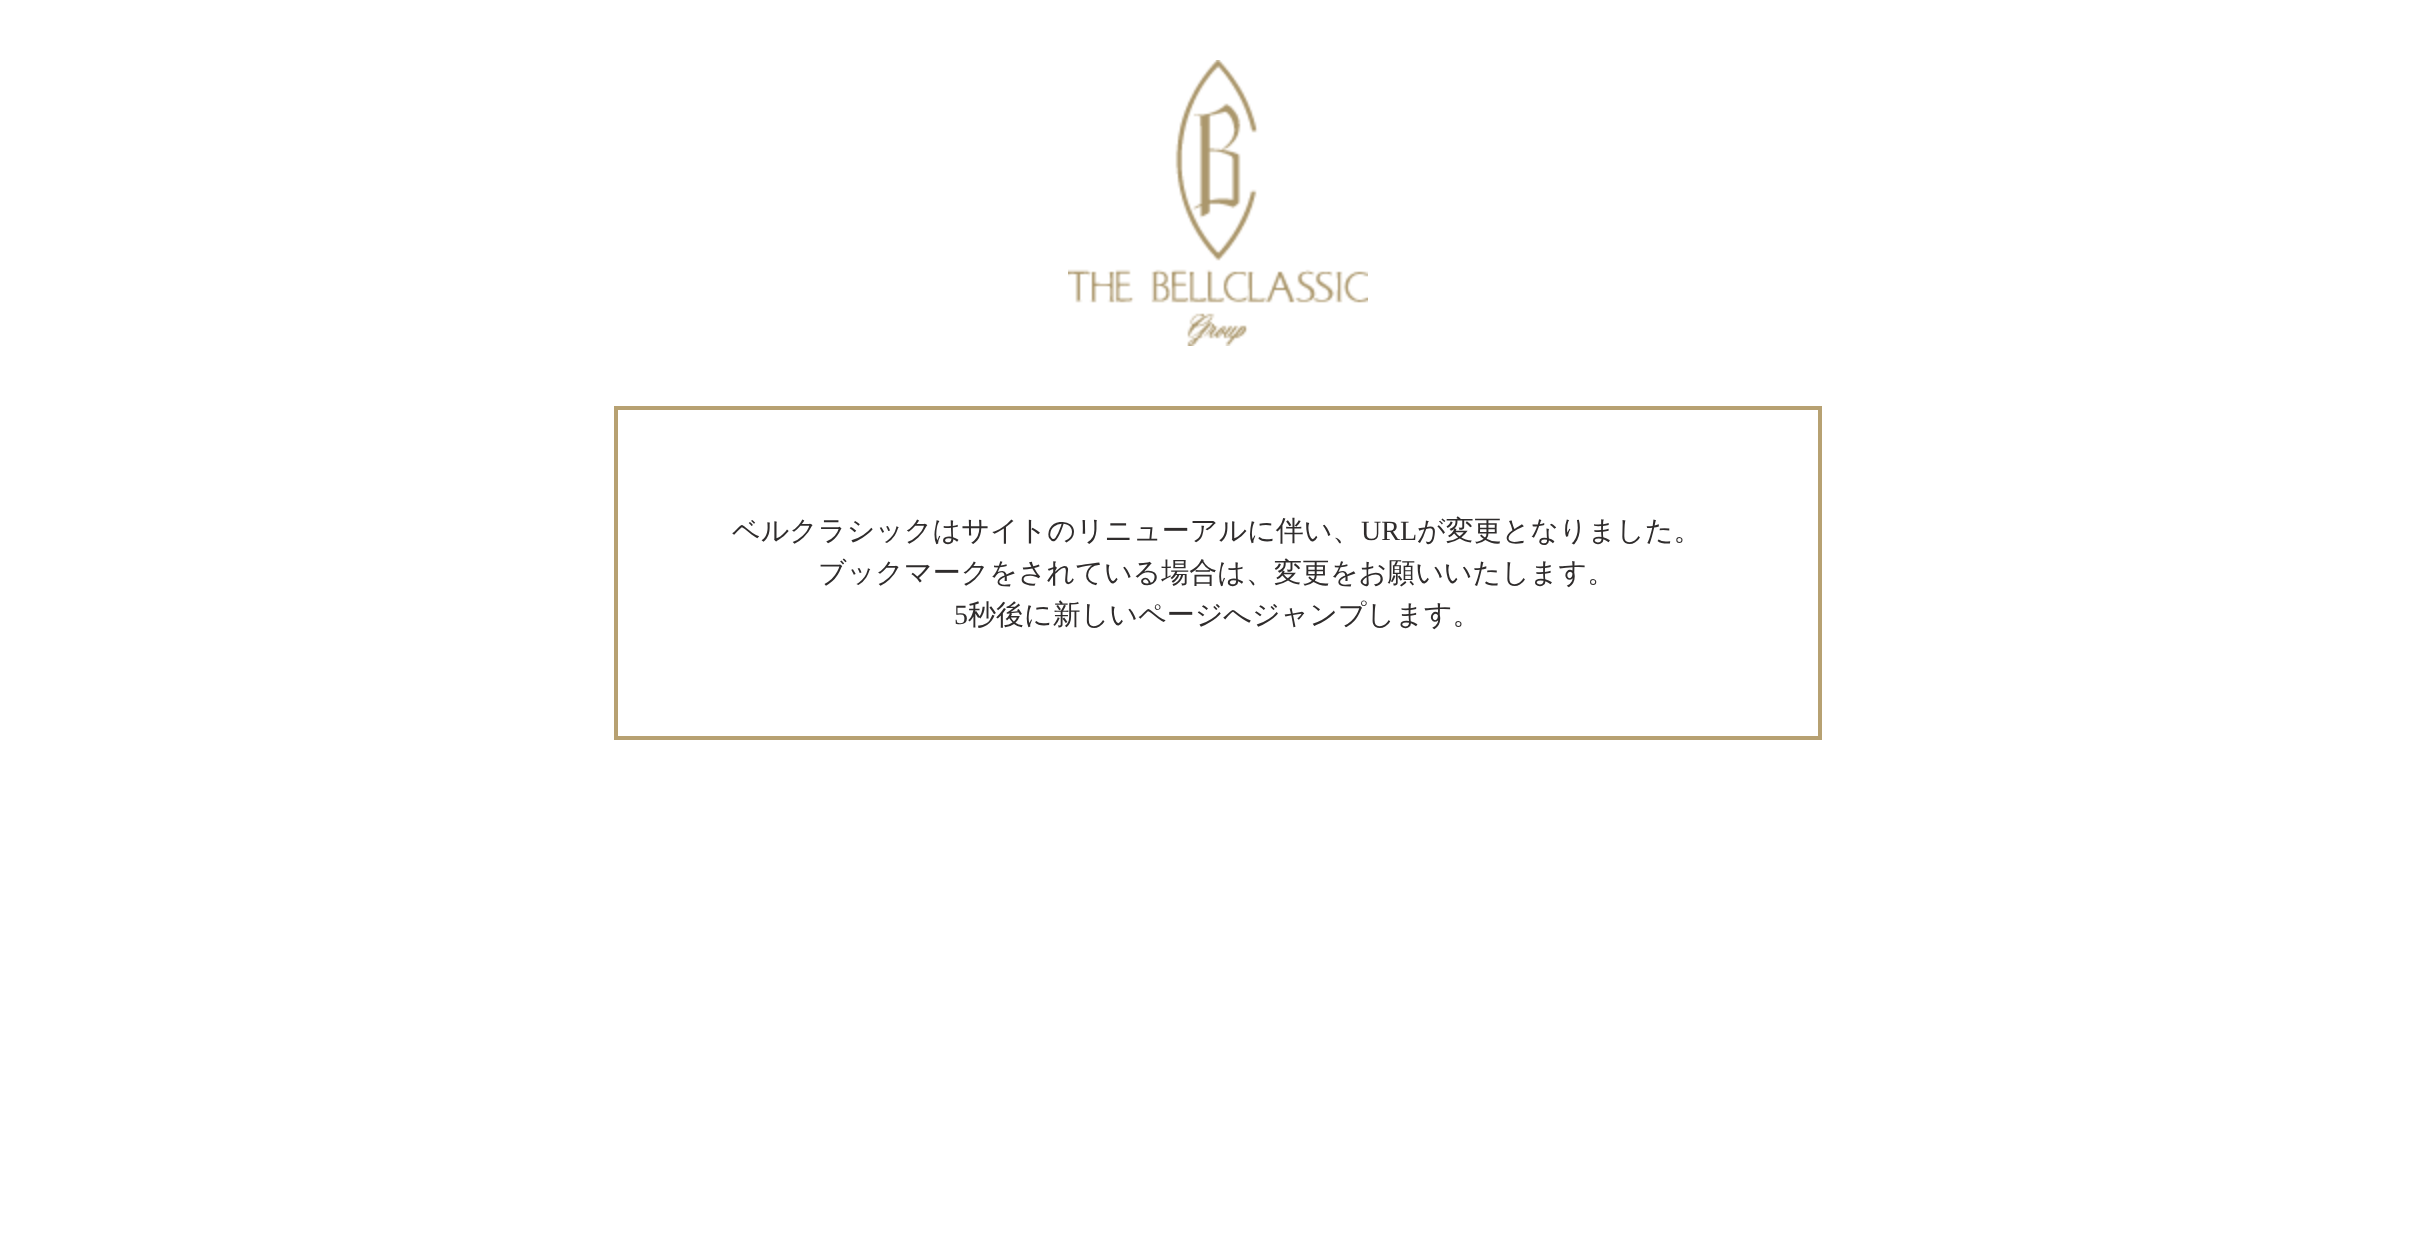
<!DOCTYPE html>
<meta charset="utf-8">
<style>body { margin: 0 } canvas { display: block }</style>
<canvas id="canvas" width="2434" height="1241"></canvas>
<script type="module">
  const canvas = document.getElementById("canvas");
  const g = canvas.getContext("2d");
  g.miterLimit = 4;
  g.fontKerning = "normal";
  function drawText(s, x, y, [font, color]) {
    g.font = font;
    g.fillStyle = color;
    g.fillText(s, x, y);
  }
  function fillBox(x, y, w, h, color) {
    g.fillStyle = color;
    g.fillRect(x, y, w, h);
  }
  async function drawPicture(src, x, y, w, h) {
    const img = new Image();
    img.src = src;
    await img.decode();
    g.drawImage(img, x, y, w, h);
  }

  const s1 = ["500 28px WenQuanYi Zen Hei", "#2F2C2C"];
  const s2 = ["28px Liberation Serif", "#2F2C2C"];

  fillBox(0, 0, 2434, 1241, "#FFFFFF");
  await drawPicture("pic1.png", 1068, 60, 300, 286);
  g.strokeStyle = "#B7A172";
  g.lineWidth = 4;
  g.strokeRect(616, 408, 1204, 330);
  drawText("ベルクラシックはサイトのリニューアルに伴い、", 732, 540, s1);
  drawText("URL", 1361, 540, s2);
  drawText("が変更となりました。", 1417, 540, s1);
  drawText("ブックマークをされている場合は、変更をお願いいたします。", 818, 582, s1);
  drawText("5", 954, 624, s2);
  drawText("秒後に新しいページへジャンプします。", 968, 624, s1);
</script>
